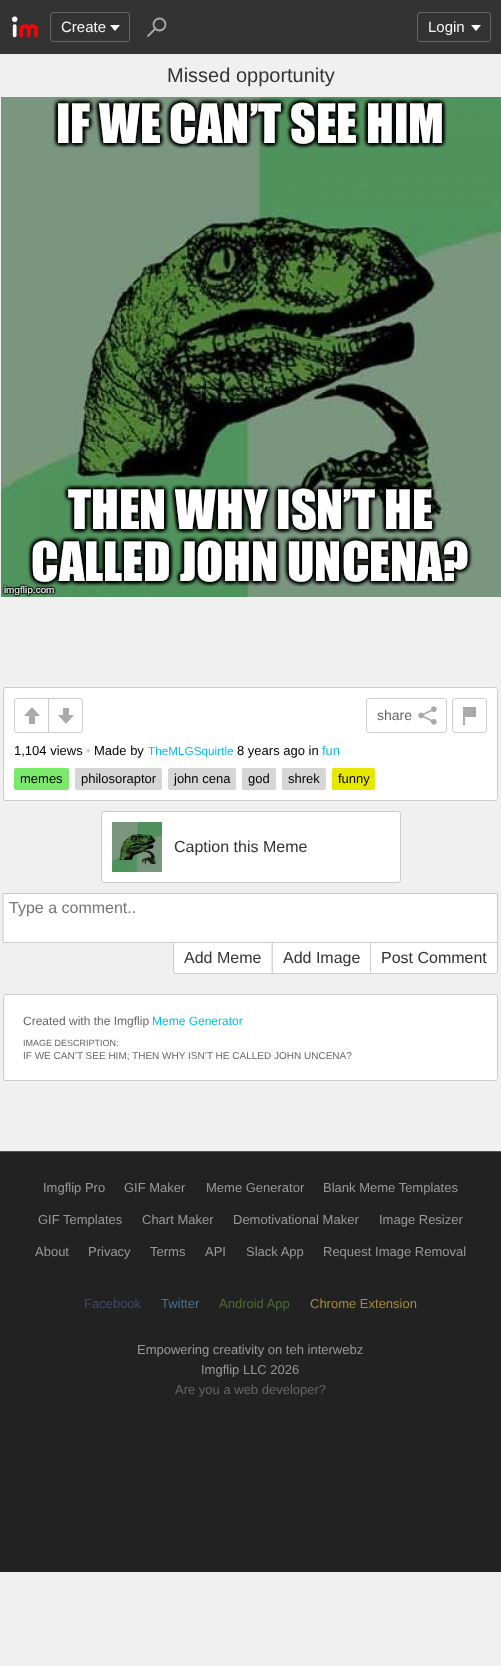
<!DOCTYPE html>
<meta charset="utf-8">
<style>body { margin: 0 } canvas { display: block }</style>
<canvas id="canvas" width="501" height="1666"></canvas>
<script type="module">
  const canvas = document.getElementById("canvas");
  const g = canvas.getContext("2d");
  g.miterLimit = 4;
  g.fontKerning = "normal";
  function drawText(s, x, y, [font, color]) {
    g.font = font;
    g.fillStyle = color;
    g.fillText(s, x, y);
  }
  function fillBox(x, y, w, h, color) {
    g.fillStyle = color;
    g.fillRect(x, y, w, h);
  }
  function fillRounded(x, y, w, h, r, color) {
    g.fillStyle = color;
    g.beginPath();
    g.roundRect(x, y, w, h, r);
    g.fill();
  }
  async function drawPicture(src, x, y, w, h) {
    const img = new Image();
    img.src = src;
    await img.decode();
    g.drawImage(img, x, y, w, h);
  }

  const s1 = ["15px Liberation Sans", "#F5F5F5"];
  const s2 = ["20px Liberation Sans", "#333333"];
  const s3 = ["14px Liberation Sans", "#666666"];
  const s4 = ["13px Liberation Sans", "#000000"];
  const s5 = ["13px Liberation Sans", "#CCCCCC"];
  const s6 = ["11.75px Liberation Sans", "#00BFF3"];
  const s7 = ["13px Liberation Sans", "#00BFF3"];
  const s8 = ["16px Liberation Sans", "#333333"];
  const s9 = ["16px Liberation Sans", "#757575"];
  const s10 = ["12px Liberation Sans", "#666666"];
  const s11 = ["12px Liberation Sans", "#00BFF3"];
  const s12 = ["9px Liberation Sans", "#666666"];
  const s13 = ["10px Liberation Sans", "#666666"];
  const s14 = ["13px Liberation Sans", "#999999"];
  const s15 = ["13px Liberation Sans", "#3B4B70"];
  const s16 = ["13px Liberation Sans", "#41759C"];
  const s17 = ["13px Liberation Sans", "#4C6D2F"];
  const s18 = ["13px Liberation Sans", "#A78938"];
  const s19 = ["13px Liberation Sans", "#666666"];

  fillBox(0, 0, 501, 1666, "#F0F0F0");
  fillBox(0, 0, 501, 54, "#333333");
  await drawPicture("pic1.png", 11, 16, 28, 22);
  g.beginPath();
  g.roundRect(50.5, 12.5, 79, 29, 2.5);
  g.strokeStyle = "#666666";
  g.stroke();
  drawText("Create", 61, 32, s1);
  g.fillStyle = "#FFFFFF";
  g.beginPath();
  g.moveTo(110, 25);
  g.lineTo(120, 25);
  g.lineTo(115, 31);
  g.closePath();
  g.fill();
  g.beginPath();
  g.moveTo(148, 36);
  g.lineTo(155.5, 28.5);
  g.strokeStyle = "#AAAAAA";
  g.lineWidth = 1.8;
  g.lineCap = "round";
  g.stroke();
  g.beginPath();
  g.arc(159.5, 24.5, 6, 0, Math.PI * 2);
  g.stroke();
  g.beginPath();
  g.roundRect(417.5, 12.5, 73, 29, 2.5);
  g.strokeStyle = "#666666";
  g.lineWidth = 1;
  g.stroke();
  drawText("Login", 428, 32, s1);
  g.fillStyle = "#FFFFFF";
  g.beginPath();
  g.moveTo(471, 25);
  g.lineTo(481, 25);
  g.lineTo(476, 31);
  g.closePath();
  g.fill();
  drawText("Missed opportunity", 167, 82, s2);
  await drawPicture("pic2.png", 1, 97, 500, 500);
  g.fillStyle = "#FFFFFF";
  g.beginPath();
  g.roundRect(3.5, 687.5, 494, 113, 2.5);
  g.fill();
  g.strokeStyle = "#CCCCCC";
  g.stroke();
  g.beginPath();
  g.roundRect(14.5, 698.5, 34, 34, [2.5, 0, 0, 2.5]);
  g.stroke();
  fillBox(29, 714, 6, 10, "#AAAAAA");
  g.beginPath();
  g.moveTo(40, 716);
  g.lineTo(24, 716);
  g.lineTo(32, 707);
  g.closePath();
  g.fill();
  g.fillStyle = "#FFFFFF";
  g.beginPath();
  g.roundRect(48.5, 698.5, 34, 34, [0, 2.5, 2.5, 0]);
  g.fill();
  g.stroke();
  fillBox(63, 708, 6, 10, "#AAAAAA");
  g.beginPath();
  g.moveTo(58, 715);
  g.lineTo(74, 715);
  g.lineTo(66, 724);
  g.closePath();
  g.fill();
  g.beginPath();
  g.roundRect(366.5, 698.5, 80, 34, 2.5);
  g.stroke();
  drawText("share", 377, 720, s3);
  await drawPicture("pic3.png", 418, 706, 19, 19);
  g.beginPath();
  g.roundRect(452.5, 698.5, 34, 34, 2.5);
  g.stroke();
  fillBox(463, 707, 13, 10, "#AAAAAA");
  fillBox(463, 717, 2, 8, "#AAAAAA");
  drawText("1,104 views", 14, 755, s4);
  drawText("•", 86, 755, s5);
  drawText("Made by", 94, 755, s4);
  drawText("TheMLGSquirtle", 148, 755, s6);
  drawText("8 years ago in", 237, 755, s4);
  drawText("fun", 322, 755, s7);
  fillRounded(14, 768, 55, 22, 2, "#7AE969");
  drawText("memes", 20, 783, s4);
  fillRounded(75, 768, 87, 22, 2, "#D6D6D6");
  drawText("philosoraptor", 81, 783, s4);
  fillRounded(168, 768, 68, 22, 2, "#D6D6D6");
  drawText("john cena", 174, 783, s4);
  fillRounded(242, 768, 34, 22, 2, "#D6D6D6");
  drawText("god", 248, 783, s4);
  fillRounded(282, 768, 44, 22, 2, "#D6D6D6");
  drawText("shrek", 288, 783, s4);
  fillRounded(332, 768, 43, 22, 2, "#E7E700");
  drawText("funny", 338, 783, s4);
  g.fillStyle = "#FFFFFF";
  g.beginPath();
  g.roundRect(101.5, 811.5, 299, 71, 2.5);
  g.fill();
  g.stroke();
  await drawPicture("pic4.png", 112, 822, 50, 50);
  drawText("Caption this Meme", 174, 852, s8);
  g.fillStyle = "#FFFFFF";
  g.beginPath();
  g.roundRect(173.5, 942.5, 99, 31, [0, 0, 0, 2.5]);
  g.fill();
  g.stroke();
  g.beginPath();
  g.rect(272.5, 942.5, 98, 31);
  g.fill();
  g.stroke();
  g.beginPath();
  g.roundRect(370.5, 942.5, 127, 31, [0, 0, 2.5, 0]);
  g.fill();
  g.stroke();
  g.beginPath();
  g.rect(3.5, 893.5, 494, 49);
  g.fill();
  g.stroke();
  drawText("Type a comment..", 9, 913, s9);
  drawText("Add Meme", 184, 963, s8);
  drawText("Add Image", 283, 963, s8);
  drawText("Post Comment", 381, 963, s8);
  g.fillStyle = "#FFFFFF";
  g.beginPath();
  g.roundRect(3.5, 994.5, 494, 86, 2.5);
  g.fill();
  g.stroke();
  drawText("Created with the Imgflip", 23, 1025, s10);
  drawText("Meme Generator", 152, 1025, s11);
  drawText("IMAGE DESCRIPTION:", 23, 1046, s12);
  drawText("IF WE CAN’T SEE HIM; THEN WHY ISN’T HE CALLED JOHN UNCENA?", 23, 1059, s13);
  fillBox(0, 1152, 501, 420, "#222222");
  fillBox(0, 1151, 501, 1, "#555555");
  drawText("Imgflip Pro", 43, 1192, s14);
  drawText("GIF Maker", 124, 1192, s14);
  drawText("Meme Generator", 206, 1192, s14);
  drawText("Blank Meme Templates", 323, 1192, s14);
  drawText("GIF Templates", 38, 1224, s14);
  drawText("Chart Maker", 142, 1224, s14);
  drawText("Demotivational Maker", 233, 1224, s14);
  drawText("Image Resizer", 379, 1224, s14);
  drawText("About", 35, 1256, s14);
  drawText("Privacy", 88, 1256, s14);
  drawText("Terms", 150, 1256, s14);
  drawText("API", 205, 1256, s14);
  drawText("Slack App", 246, 1256, s14);
  drawText("Request Image Removal", 323, 1256, s14);
  drawText("Facebook", 84, 1308, s15);
  drawText("Twitter", 161, 1308, s16);
  drawText("Android App", 219, 1308, s17);
  drawText("Chrome Extension", 310, 1308, s18);
  drawText("Empowering creativity on teh interwebz", 137, 1354, s14);
  drawText("Imgflip LLC 2026", 201, 1374, s14);
  drawText("Are you a web developer?", 175, 1394, s19);
</script>
